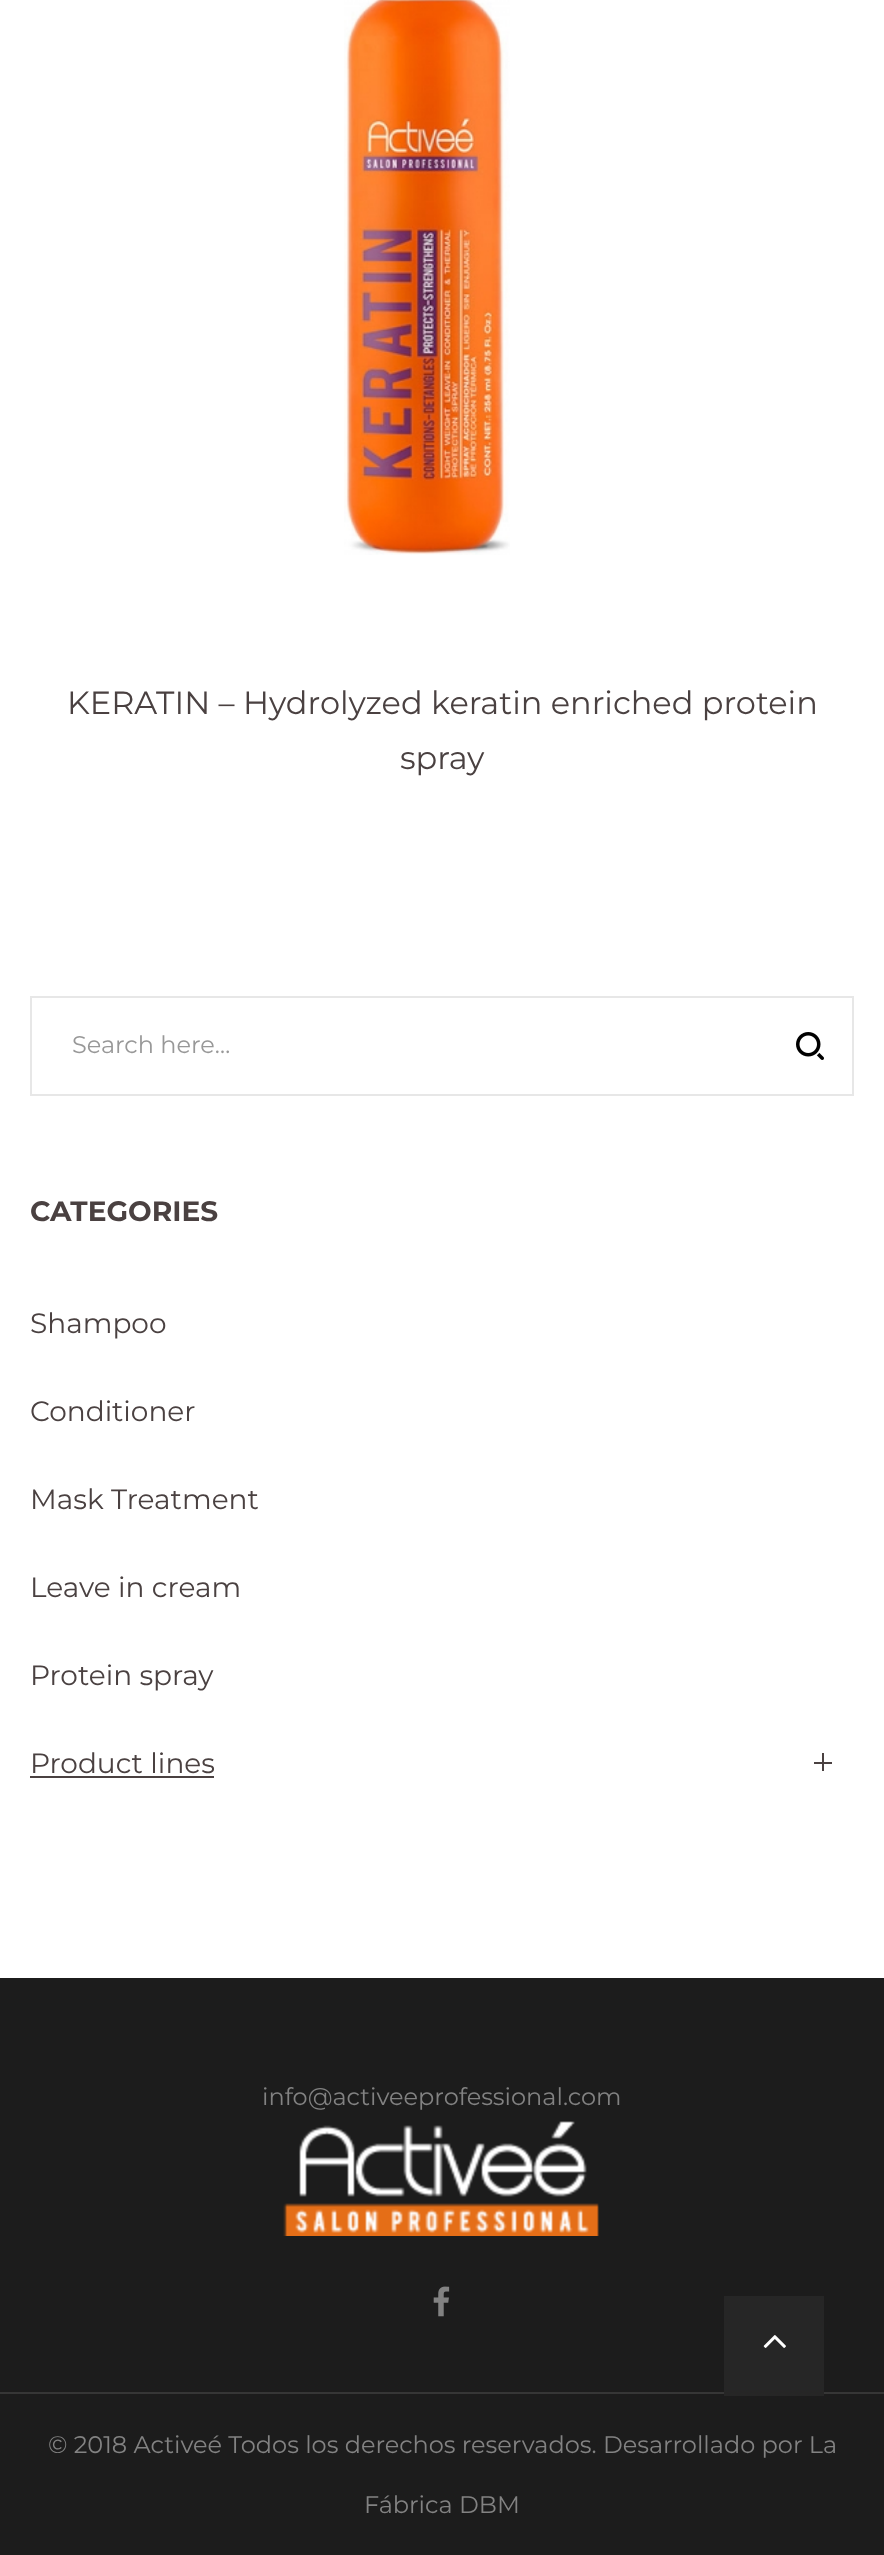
<!DOCTYPE html>
<meta charset="utf-8">
<style>body { margin: 0 } canvas { display: block }</style>
<canvas id="canvas" width="884" height="2555"></canvas>
<script type="module">
  const canvas = document.getElementById("canvas");
  const g = canvas.getContext("2d");
  g.miterLimit = 4;
  g.fontKerning = "normal";
  function drawText(s, x, y, [font, color]) {
    g.font = font;
    g.fillStyle = color;
    g.fillText(s, x, y);
  }
  function fillBox(x, y, w, h, color) {
    g.fillStyle = color;
    g.fillRect(x, y, w, h);
  }
  async function drawPicture(src, x, y, w, h) {
    const img = new Image();
    img.src = src;
    await img.decode();
    g.drawImage(img, x, y, w, h);
  }

  const s1 = ["32px Montserrat", "#4A4141"];
  const s2 = ["24px Montserrat", "#989898"];
  const s3 = ["bold 28px Montserrat", "#4A4141"];
  const s4 = ["28px Montserrat", "#4A4141"];
  const s5 = ["24px Montserrat", "#828282"];

  fillBox(0, 0, 884, 2555, "#FFFFFF");
  await drawPicture("pic1.png", 344, 0, 166, 555);
  drawText("KERATIN – Hydrolyzed keratin enriched protein", 67, 714, s1);
  drawText("spray", 400, 769, s1);
  g.strokeStyle = "#E7E7E7";
  g.lineWidth = 2;
  g.strokeRect(31, 997, 822, 98);
  drawText("Search here…", 72, 1053, s2);
  await drawPicture("pic2.png", 796, 1032, 28, 28);
  drawText("CATEGORIES", 30, 1221, s3);
  drawText("Shampoo", 30, 1333, s4);
  drawText("Conditioner", 30, 1421, s4);
  drawText("Mask Treatment", 30, 1509, s4);
  drawText("Leave in cream", 30, 1597, s4);
  drawText("Protein spray", 30, 1685, s4);
  drawText("Product lines", 30, 1773, s4);
  fillBox(30, 1776, 184, 2, "#4A4141");
  fillBox(814, 1762, 18, 2, "#4A4141");
  fillBox(822, 1753, 2, 18, "#4A4141");
  fillBox(0, 1978, 884, 414, "#1C1C1C");
  fillBox(0, 2392, 884, 2, "#363636");
  drawText("info@activeeprofessional.com", 262, 2105, s5);
  await drawPicture("pic3.png", 283, 2121, 316, 115);
  await drawPicture("pic4.png", 433, 2286, 17, 31);
  fillBox(0, 2394, 884, 161, "#1C1C1C");
  drawText("© 2018 Activeé Todos los derechos reservados. Desarrollado por La", 48, 2453, s5);
  drawText("Fábrica DBM", 364, 2513, s5);
  fillBox(724, 2296, 100, 100, "#262626");
  await drawPicture("pic5.png", 763, 2335, 23, 13);
</script>
